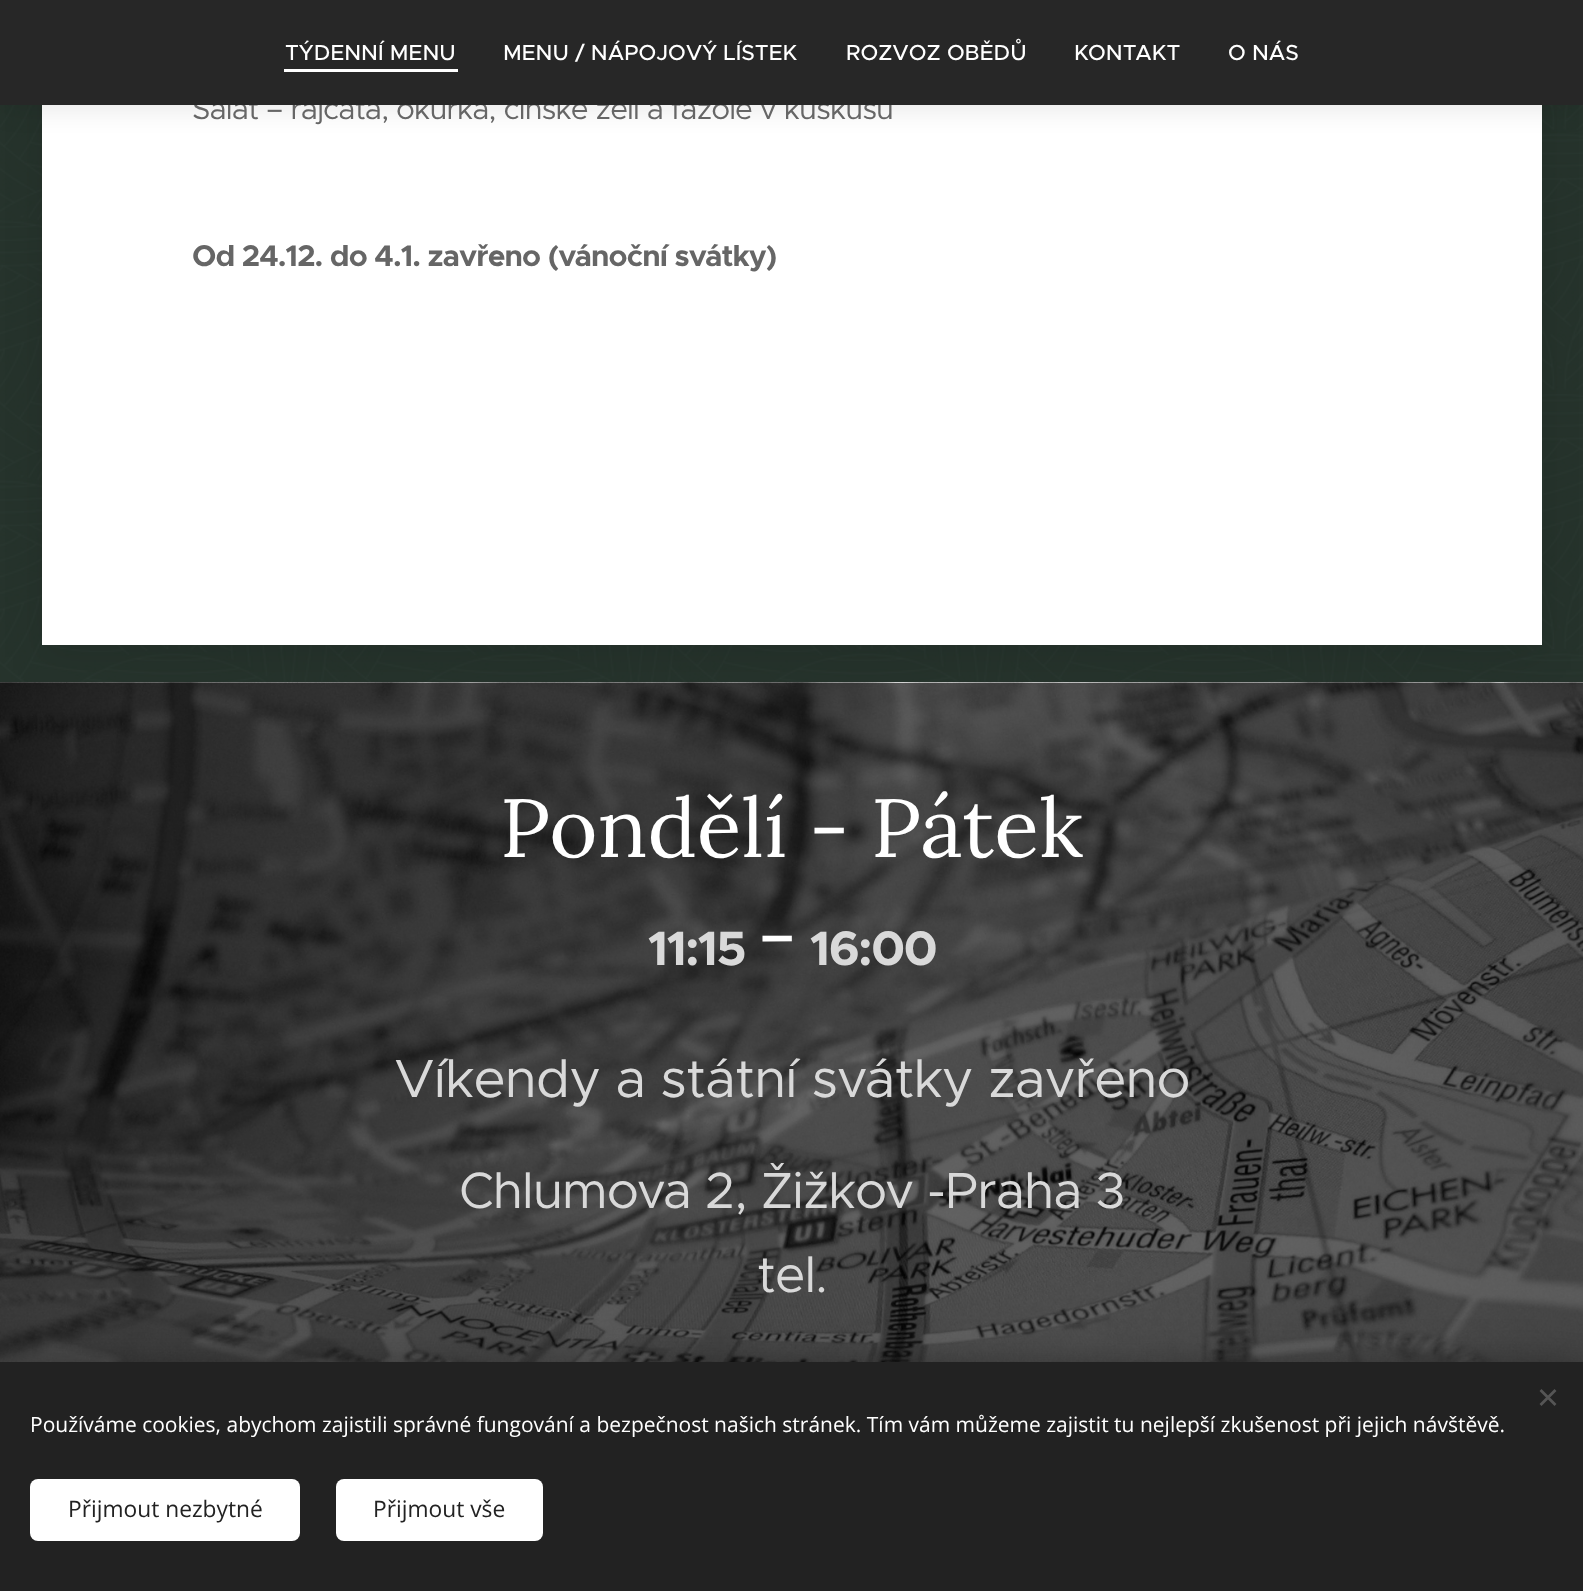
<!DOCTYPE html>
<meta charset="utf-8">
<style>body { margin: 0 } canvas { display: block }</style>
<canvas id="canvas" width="1583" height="1591"></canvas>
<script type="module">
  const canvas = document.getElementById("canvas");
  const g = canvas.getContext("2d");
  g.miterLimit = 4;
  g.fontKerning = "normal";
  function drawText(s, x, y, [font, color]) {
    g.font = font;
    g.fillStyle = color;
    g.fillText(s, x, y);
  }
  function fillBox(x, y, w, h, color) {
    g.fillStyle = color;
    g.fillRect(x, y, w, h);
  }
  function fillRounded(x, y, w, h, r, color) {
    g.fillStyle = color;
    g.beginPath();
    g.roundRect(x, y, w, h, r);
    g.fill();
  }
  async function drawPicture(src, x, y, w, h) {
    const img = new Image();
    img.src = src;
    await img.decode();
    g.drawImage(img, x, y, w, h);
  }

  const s1 = ["30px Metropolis", "#666666"];
  const s2 = ["500 21.9px Metropolis", "#FFFFFF"];
  const s3 = ["bold 30px Metropolis", "#666666"];
  const s4 = ["82.5px Lora", "#FFFFFF"];
  const s5 = ["bold 48.5px Metropolis", "#D9D9D9"];
  const s6 = ["54px Metropolis", "#D9D9D9"];
  const s7 = ["51px Metropolis", "#D9D9D9"];
  const s8 = ["21px Open Sans", "#FFFFFF"];
  const s9 = ["22.75px Open Sans", "#222222"];

  fillBox(0, 0, 1583, 1591, "#FFFFFF");
  await drawPicture("pic1.png", 0, 105, 1583, 577);
  g.fillStyle = "rgba(0, 0, 0, 0.1)";
  g.filter = "blur(19px)";
  g.beginPath();
  g.rect(42, -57, 1500, 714);
  g.fill();
  g.filter = "none";
  fillBox(42, 105, 1500, 540, "#FFFFFF");
  g.fillStyle = "rgba(0, 0, 0, 0.07)";
  g.filter = "blur(11px)";
  g.beginPath();
  g.rect(0, 8, 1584, 105);
  g.fill();
  g.filter = "none";
  g.letterSpacing = "-0.9px";
  drawText("Salát – rajčata, okurka, čínské zelí a fazole v kuskusu", 192, 119, s1);
  fillBox(0, 0, 1583, 105, "#272727");
  g.letterSpacing = "0px";
  drawText("TÝDENNÍ MENU", 285, 60, s2);
  fillBox(284, 69, 174, 3, "#FFFFFF");
  drawText("MENU / NÁPOJOVÝ LÍSTEK", 503, 60, s2);
  drawText("ROZVOZ OBĚDŮ", 846, 60, s2);
  drawText("KONTAKT", 1074, 60, s2);
  drawText("O NÁS", 1228, 60, s2);
  g.letterSpacing = "-0.9px";
  drawText("Od 24.12. do 4.1. zavřeno (vánoční svátky)", 192, 266, s3);
  await drawPicture("pic2.png", 0, 682, 1583, 680);
  g.letterSpacing = "0px";
  drawText("Pondělí - Pátek", 500, 857, s4);
  g.letterSpacing = "-1.5px";
  drawText("11:15", 648, 965, s5);
  g.letterSpacing = "0px";
  drawText("-", 757, 965, s4);
  g.letterSpacing = "-1.5px";
  drawText("16:00", 810, 965, s5);
  g.letterSpacing = "-0.9px";
  drawText("Víkendy a státní svátky zavřeno", 394, 1097, s6);
  drawText("Chlumova 2, Žižkov -Praha 3", 459, 1208, s7);
  drawText("tel.", 757, 1292, s7);
  g.fillStyle = "rgba(0, 0, 0, 0.33)";
  g.filter = "blur(19px)";
  g.beginPath();
  g.rect(0, 1362, 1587, 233);
  g.fill();
  g.filter = "none";
  fillBox(0, 1362, 1583, 229, "#222222");
  g.fillStyle = "#555555";
  g.beginPath();
  g.moveTo(1539.5, 1404);
  g.lineTo(1554.5, 1389);
  g.lineTo(1556.5, 1391);
  g.lineTo(1541.5, 1406);
  g.closePath();
  g.fill();
  g.beginPath();
  g.moveTo(1541.5, 1389);
  g.lineTo(1556.5, 1404);
  g.lineTo(1554.5, 1406);
  g.lineTo(1539.5, 1391);
  g.closePath();
  g.fill();
  g.letterSpacing = "0px";
  drawText("Používáme cookies, abychom zajistili správné fungování a bezpečnost našich stránek. Tím vám můžeme zajistit tu nejlepší zkušenost při jejich návštěvě.", 30, 1432, s8);
  fillRounded(30, 1479, 270, 62, 8, "#FFFFFF");
  drawText("Přijmout nezbytné", 68, 1517, s9);
  fillRounded(336, 1479, 207, 62, 8, "#FFFFFF");
  drawText("Přijmout vše", 373, 1517, s9);
</script>
